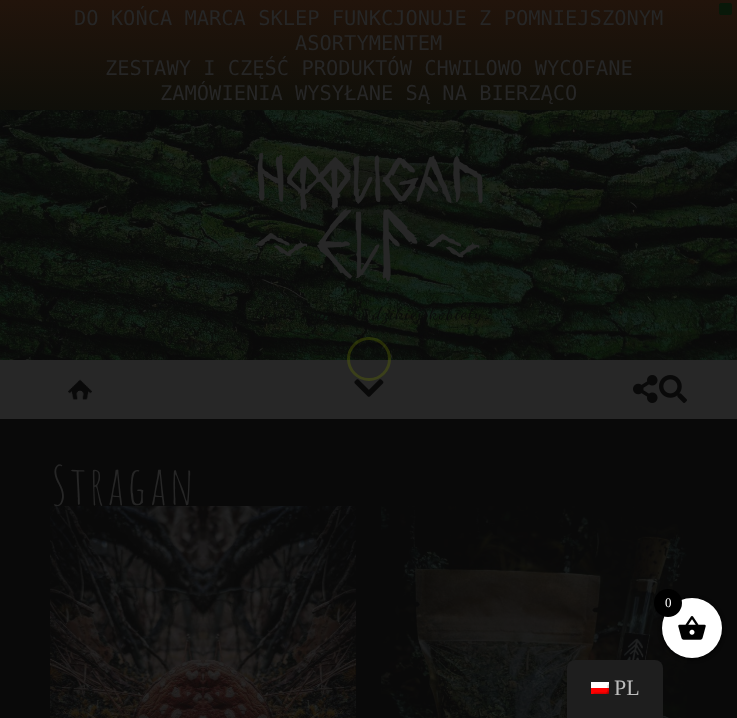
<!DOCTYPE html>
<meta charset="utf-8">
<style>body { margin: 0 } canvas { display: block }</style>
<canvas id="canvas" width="737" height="718"></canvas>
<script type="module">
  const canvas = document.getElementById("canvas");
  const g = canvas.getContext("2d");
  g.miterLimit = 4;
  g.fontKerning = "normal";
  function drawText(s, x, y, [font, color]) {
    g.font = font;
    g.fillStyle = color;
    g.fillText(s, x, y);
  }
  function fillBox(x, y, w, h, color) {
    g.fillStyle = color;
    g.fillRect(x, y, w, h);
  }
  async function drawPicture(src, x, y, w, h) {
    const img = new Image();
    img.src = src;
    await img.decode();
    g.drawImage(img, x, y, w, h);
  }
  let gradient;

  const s1 = ["20.4px DejaVu Sans Mono", "#262626"];
  const s2 = ["18px Dancing Script", "#0B0B0B"];
  const s3 = ["53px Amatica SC", "#262626"];
  const s4 = ["13px Liberation Serif", "#FFFFFF"];
  const s5 = ["22px Liberation Serif", "#BDBDBD"];

  fillBox(0, 0, 737, 718, "#272727");
  gradient = g.createLinearGradient(369, 0, 369, 110);
  gradient.addColorStop(0, "#22140B");
  gradient.addColorStop(1, "#0F0F09");
  g.fillStyle = gradient;
  g.fillRect(0, 0, 737, 110);
  drawText("DO KOŃCA MARCA SKLEP FUNKCJONUJE Z POMNIEJSZONYM", 74, 25, s1);
  drawText("ASORTYMENTEM", 295, 50, s1);
  drawText("ZESTAWY I CZĘŚĆ PRODUKTÓW CHWILOWO WYCOFANE", 105, 75, s1);
  drawText("ZAMÓWIENIA WYSYŁANE SĄ NA BIERZĄCO", 160, 100, s1);
  g.fillStyle = "#091809";
  g.beginPath();
  g.roundRect(719.5, 3.5, 12, 11, 1.5);
  g.fill();
  g.strokeStyle = "#091809";
  g.stroke();
  await drawPicture("pic1.png", 0, 110, 737, 250);
  await drawPicture("pic2.png", 254, 152, 229, 130);
  g.letterSpacing = "1.4px";
  drawText("Leśne wymysły dzikiej kobiety", 253, 319, s2);
  await drawPicture("pic3.png", 68, 379, 24, 21);
  await drawPicture("pic4.png", 354, 379, 30, 18);
  await drawPicture("pic5.png", 633, 375, 25, 28);
  await drawPicture("pic6.png", 659, 375, 28, 28);
  fillBox(0, 419, 737, 299, "#090909");
  g.letterSpacing = "1px";
  drawText("Stragan", 50, 505, s3);
  await drawPicture("pic7.png", 50, 506, 306, 212);
  await drawPicture("pic8.png", 381, 506, 306, 212);
  g.beginPath();
  g.arc(369, 359, 20.5, 0, Math.PI * 2);
  g.strokeStyle = "rgba(96, 112, 4, 0.35)";
  g.lineWidth = 3;
  g.stroke();
  g.fillStyle = "#000000";
  g.filter = "blur(2px)";
  g.beginPath();
  g.roundRect(662, 599, 60, 60, 30);
  g.fill();
  g.filter = "none";
  g.fillStyle = "#FFFFFF";
  g.beginPath();
  g.arc(692, 628, 30, 0, Math.PI * 2);
  g.fill();
  await drawPicture("pic9.png", 678, 616, 28, 24);
  g.fillStyle = "#000000";
  g.beginPath();
  g.arc(668, 603, 14, 0, Math.PI * 2);
  g.fill();
  g.letterSpacing = "0px";
  drawText("0", 665, 607, s4);
  g.fillStyle = "#1E1E1E";
  g.beginPath();
  g.roundRect(567, 660, 96, 58, [8, 8, 0, 0]);
  g.fill();
  await drawPicture("pic10.png", 591, 682, 18, 12);
  drawText("PL", 614, 695, s5);
</script>
